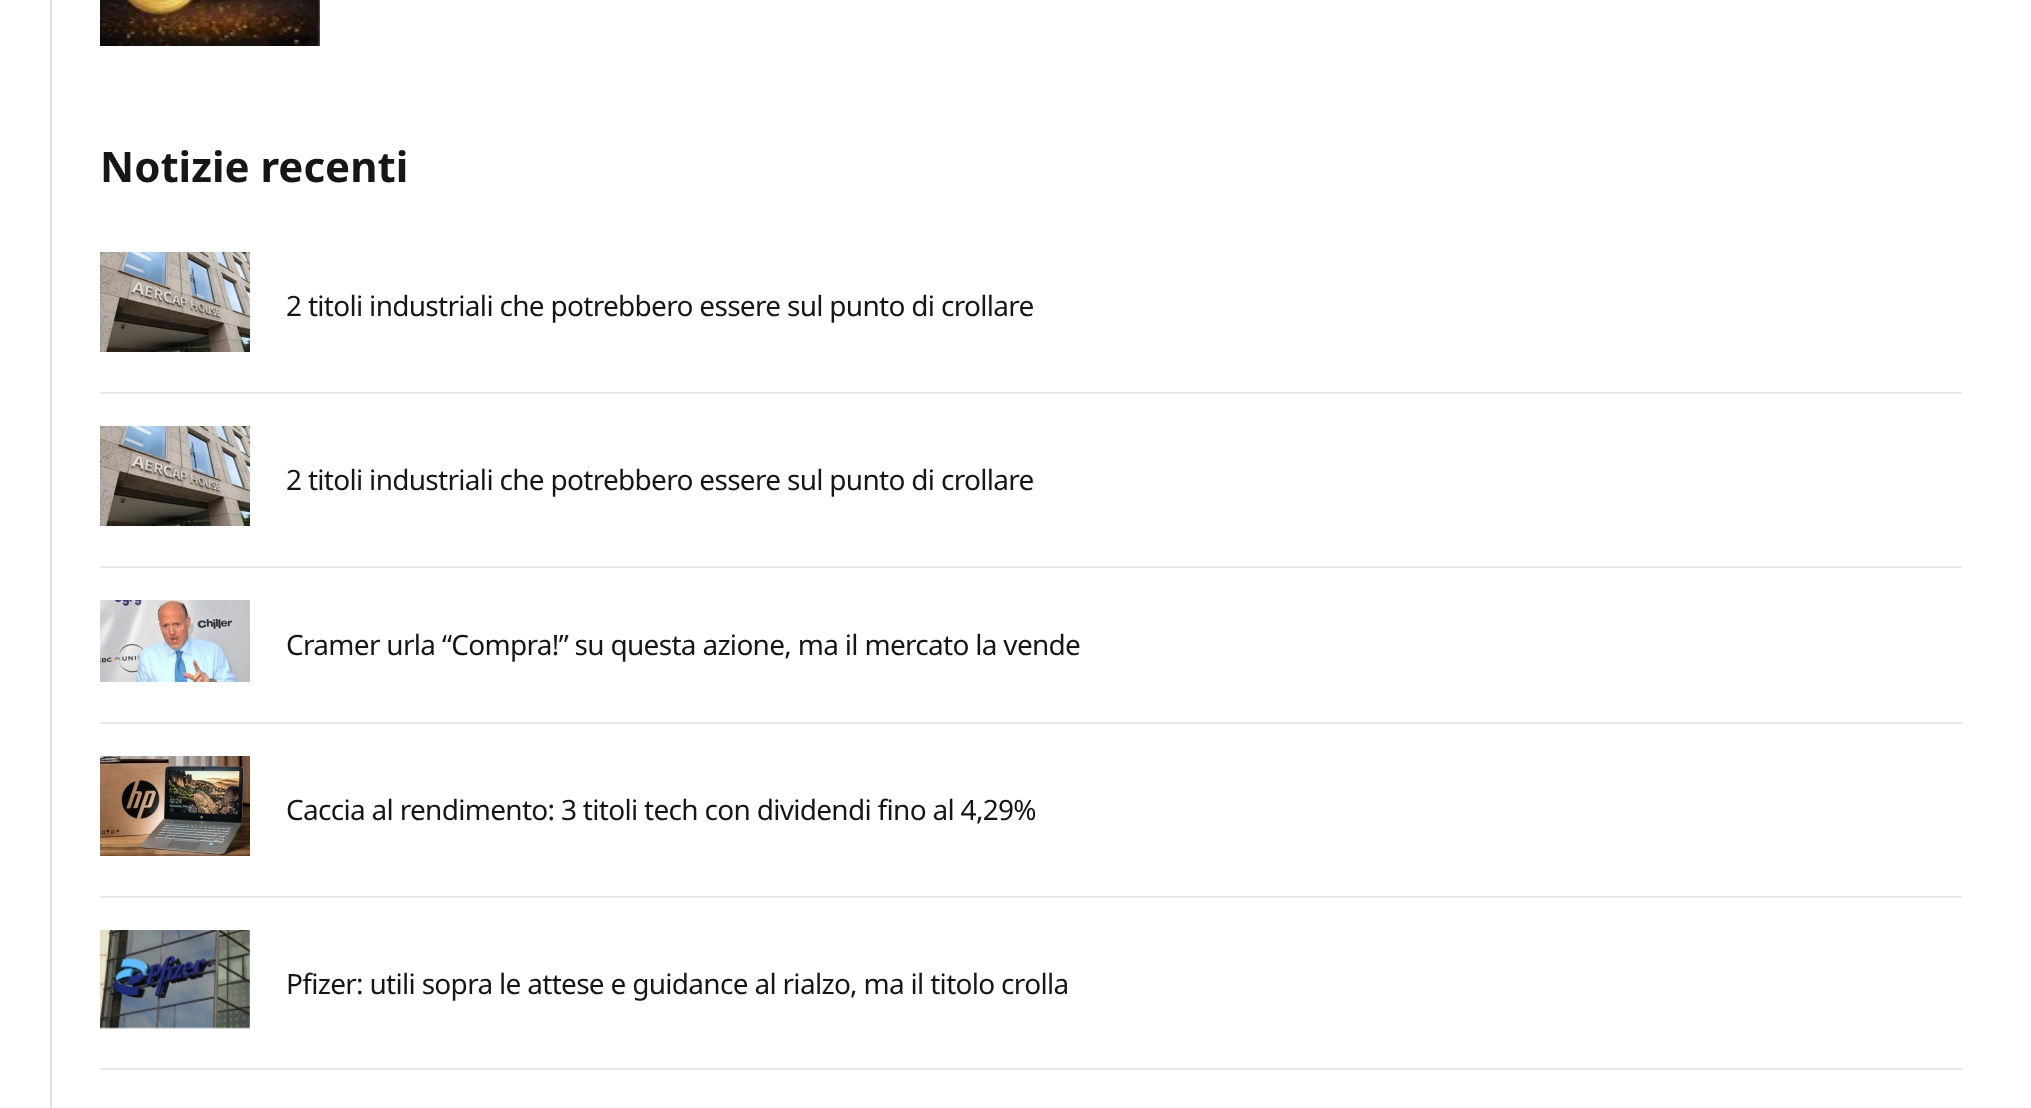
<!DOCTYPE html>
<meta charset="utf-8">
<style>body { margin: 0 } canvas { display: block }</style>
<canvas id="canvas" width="2031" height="1108"></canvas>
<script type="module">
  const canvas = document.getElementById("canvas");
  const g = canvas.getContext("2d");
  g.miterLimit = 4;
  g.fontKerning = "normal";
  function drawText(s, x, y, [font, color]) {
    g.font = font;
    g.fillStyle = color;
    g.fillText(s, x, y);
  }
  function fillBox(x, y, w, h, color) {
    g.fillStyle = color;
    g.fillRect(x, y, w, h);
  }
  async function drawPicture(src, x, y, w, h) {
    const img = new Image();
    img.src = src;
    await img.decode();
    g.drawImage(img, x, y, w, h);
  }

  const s1 = ["bold 42px Noto Sans", "#161616"];
  const s2 = ["28px Noto Sans", "#161616"];

  fillBox(0, 0, 2031, 1108, "#FFFFFF");
  fillBox(50, 0, 2, 1108, "#E2E2E2");
  await drawPicture("pic1.png", 100, 0, 220, 46);
  drawText("Notizie recenti", 100, 182, s1);
  await drawPicture("pic2.png", 100, 252, 150, 100);
  g.letterSpacing = "-0.7px";
  drawText("2 titoli industriali che potrebbero essere sul punto di crollare", 286, 316, s2);
  fillBox(100, 392, 1862, 2, "#E8E8E8");
  await drawPicture("pic2.png", 100, 426, 150, 100);
  drawText("2 titoli industriali che potrebbero essere sul punto di crollare", 286, 490, s2);
  fillBox(100, 566, 1862, 2, "#E8E8E8");
  await drawPicture("pic3.png", 100, 600, 150, 82);
  drawText("Cramer urla “Compra!” su questa azione, ma il mercato la vende", 286, 655, s2);
  fillBox(100, 722, 1862, 2, "#E8E8E8");
  await drawPicture("pic4.png", 100, 756, 150, 100);
  drawText("Caccia al rendimento: 3 titoli tech con dividendi fino al 4,29%", 286, 820, s2);
  fillBox(100, 896, 1862, 2, "#E8E8E8");
  await drawPicture("pic5.png", 100, 930, 150, 99);
  drawText("Pfizer: utili sopra le attese e guidance al rialzo, ma il titolo crolla", 286, 994, s2);
  fillBox(100, 1068, 1862, 2, "#E8E8E8");
</script>
